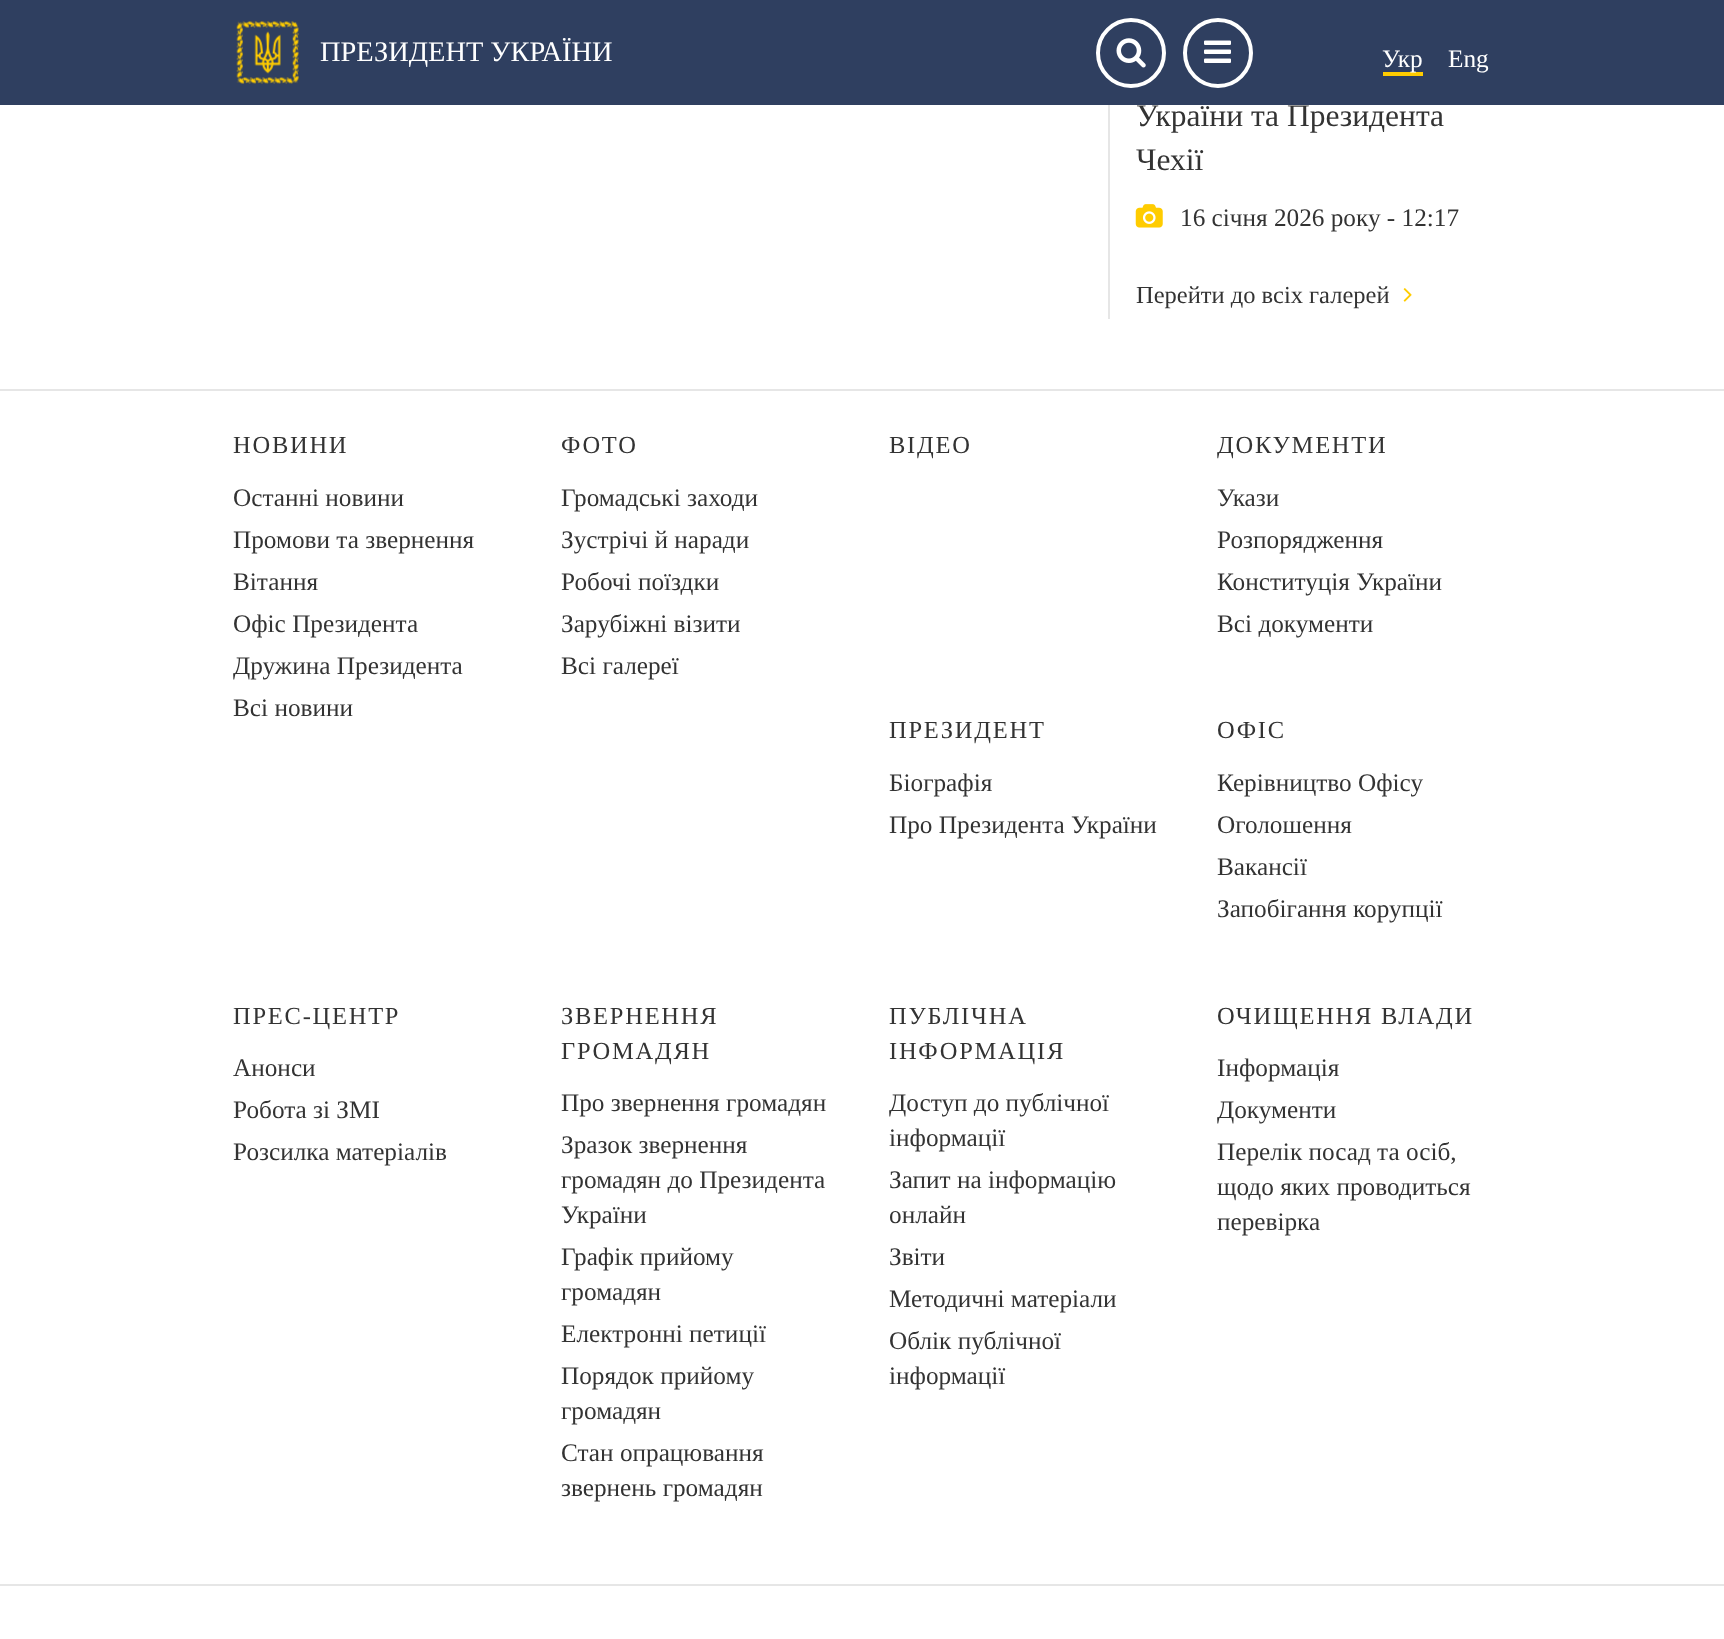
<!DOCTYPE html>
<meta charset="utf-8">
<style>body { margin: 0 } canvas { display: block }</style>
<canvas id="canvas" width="1724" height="1639"></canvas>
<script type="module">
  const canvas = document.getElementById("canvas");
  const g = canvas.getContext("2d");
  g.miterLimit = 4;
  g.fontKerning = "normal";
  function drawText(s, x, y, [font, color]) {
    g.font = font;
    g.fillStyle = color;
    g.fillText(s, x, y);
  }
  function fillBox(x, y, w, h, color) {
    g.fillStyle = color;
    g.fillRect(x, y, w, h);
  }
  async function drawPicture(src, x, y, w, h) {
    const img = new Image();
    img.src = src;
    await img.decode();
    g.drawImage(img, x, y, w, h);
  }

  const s1 = ["28.4px Liberation Serif", "#FFFFFF"];
  const s2 = ["25.25px Liberation Serif", "#FFFFFF"];
  const s3 = ["31.5px Liberation Serif", "#333333"];
  const s4 = ["25.25px Liberation Serif", "#333333"];
  const s5 = ["24.5px Liberation Serif", "#333333"];

  fillBox(0, 0, 1724, 1639, "#FFFFFF");
  fillBox(0, 0, 1724, 105, "#2F3F60");
  await drawPicture("pic1.png", 236, 21, 63, 63);
  drawText("ПРЕЗИДЕНТ УКРАЇНИ", 320, 61, s1);
  g.beginPath();
  g.arc(1131, 53, 33, 0, Math.PI * 2);
  g.strokeStyle = "#FFFFFF";
  g.lineWidth = 4;
  g.stroke();
  await drawPicture("pic2.png", 1116, 38, 30, 30);
  g.beginPath();
  g.arc(1218, 53, 33, 0, Math.PI * 2);
  g.stroke();
  await drawPicture("pic3.png", 1204, 40, 27, 23);
  fillBox(1383, 72, 40, 4, "#FFCC00");
  drawText("Укр", 1382, 67, s2);
  drawText("Eng", 1448, 67, s2);
  fillBox(1108, 105, 2, 214, "#E6E6E6");
  drawText("України та Президента", 1136, 126, s3);
  drawText("Чехії", 1136, 170, s3);
  await drawPicture("pic4.png", 1135, 204, 28, 24);
  drawText("16 січня 2026 року - 12:17", 1180, 226, s4);
  drawText("Перейти до всіх галерей", 1136, 303, s5);
  await drawPicture("pic5.png", 1403, 288, 9, 14);
  fillBox(0, 389, 1724, 2, "#E6E6E6");
  g.letterSpacing = "1.75px";
  drawText("НОВИНИ", 233, 453, s5);
  g.letterSpacing = "0px";
  drawText("Останні новини", 233, 506, s4);
  drawText("Промови та звернення", 233, 548, s4);
  drawText("Вiтання", 233, 590, s4);
  drawText("Офіс Президента", 233, 632, s4);
  drawText("Дружина Президента", 233, 674, s4);
  drawText("Всі новини", 233, 716, s4);
  g.letterSpacing = "1.75px";
  drawText("ФОТО", 561, 453, s5);
  g.letterSpacing = "0px";
  drawText("Громадські заходи", 561, 506, s4);
  drawText("Зустрічі й наради", 561, 548, s4);
  drawText("Робочі поїздки", 561, 590, s4);
  drawText("Зарубіжні візити", 561, 632, s4);
  drawText("Всі галереї", 561, 674, s4);
  g.letterSpacing = "1.75px";
  drawText("ВІДЕО", 889, 453, s5);
  drawText("ДОКУМЕНТИ", 1217, 453, s5);
  g.letterSpacing = "0px";
  drawText("Укази", 1217, 506, s4);
  drawText("Розпорядження", 1217, 548, s4);
  drawText("Конституція України", 1217, 590, s4);
  drawText("Всі документи", 1217, 632, s4);
  g.letterSpacing = "1.75px";
  drawText("ПРЕЗИДЕНТ", 889, 738, s5);
  g.letterSpacing = "0px";
  drawText("Біографія", 889, 791, s4);
  drawText("Про Президента України", 889, 833, s4);
  g.letterSpacing = "1.75px";
  drawText("ОФІС", 1217, 738, s5);
  g.letterSpacing = "0px";
  drawText("Керівництво Офісу", 1217, 791, s4);
  drawText("Оголошення", 1217, 833, s4);
  drawText("Вакансії", 1217, 875, s4);
  drawText("Запобігання корупції", 1217, 917, s4);
  g.letterSpacing = "1.75px";
  drawText("ПРЕС-ЦЕНТР", 233, 1024, s5);
  g.letterSpacing = "0px";
  drawText("Анонси", 233, 1076, s4);
  drawText("Робота зі ЗМІ", 233, 1118, s4);
  drawText("Розсилка матеріалів", 233, 1160, s4);
  g.letterSpacing = "1.75px";
  drawText("ЗВЕРНЕННЯ", 561, 1024, s5);
  drawText("ГРОМАДЯН", 561, 1059, s5);
  g.letterSpacing = "0px";
  drawText("Про звернення громадян", 561, 1111, s4);
  drawText("Зразок звернення", 561, 1153, s4);
  drawText("громадян до Президента", 561, 1188, s4);
  drawText("України", 561, 1223, s4);
  drawText("Графік прийому", 561, 1265, s4);
  drawText("громадян", 561, 1300, s4);
  drawText("Електронні петиції", 561, 1342, s4);
  drawText("Порядок прийому", 561, 1384, s4);
  drawText("громадян", 561, 1419, s4);
  drawText("Стан опрацювання", 561, 1461, s4);
  drawText("звернень громадян", 561, 1496, s4);
  g.letterSpacing = "1.75px";
  drawText("ПУБЛІЧНА", 889, 1024, s5);
  drawText("ІНФОРМАЦІЯ", 889, 1059, s5);
  g.letterSpacing = "0px";
  drawText("Доступ до публічної", 889, 1111, s4);
  drawText("інформації", 889, 1146, s4);
  drawText("Запит на інформацію", 889, 1188, s4);
  drawText("онлайн", 889, 1223, s4);
  drawText("Звіти", 889, 1265, s4);
  drawText("Методичні матеріали", 889, 1307, s4);
  drawText("Облік публічної", 889, 1349, s4);
  drawText("інформації", 889, 1384, s4);
  g.letterSpacing = "1.75px";
  drawText("ОЧИЩЕННЯ ВЛАДИ", 1217, 1024, s5);
  g.letterSpacing = "0px";
  drawText("Інформація", 1217, 1076, s4);
  drawText("Документи", 1217, 1118, s4);
  drawText("Перелік посад та осіб,", 1217, 1160, s4);
  drawText("щодо яких проводиться", 1217, 1195, s4);
  drawText("перевірка", 1217, 1230, s4);
  fillBox(0, 1584, 1724, 2, "#E6E6E6");
</script>
